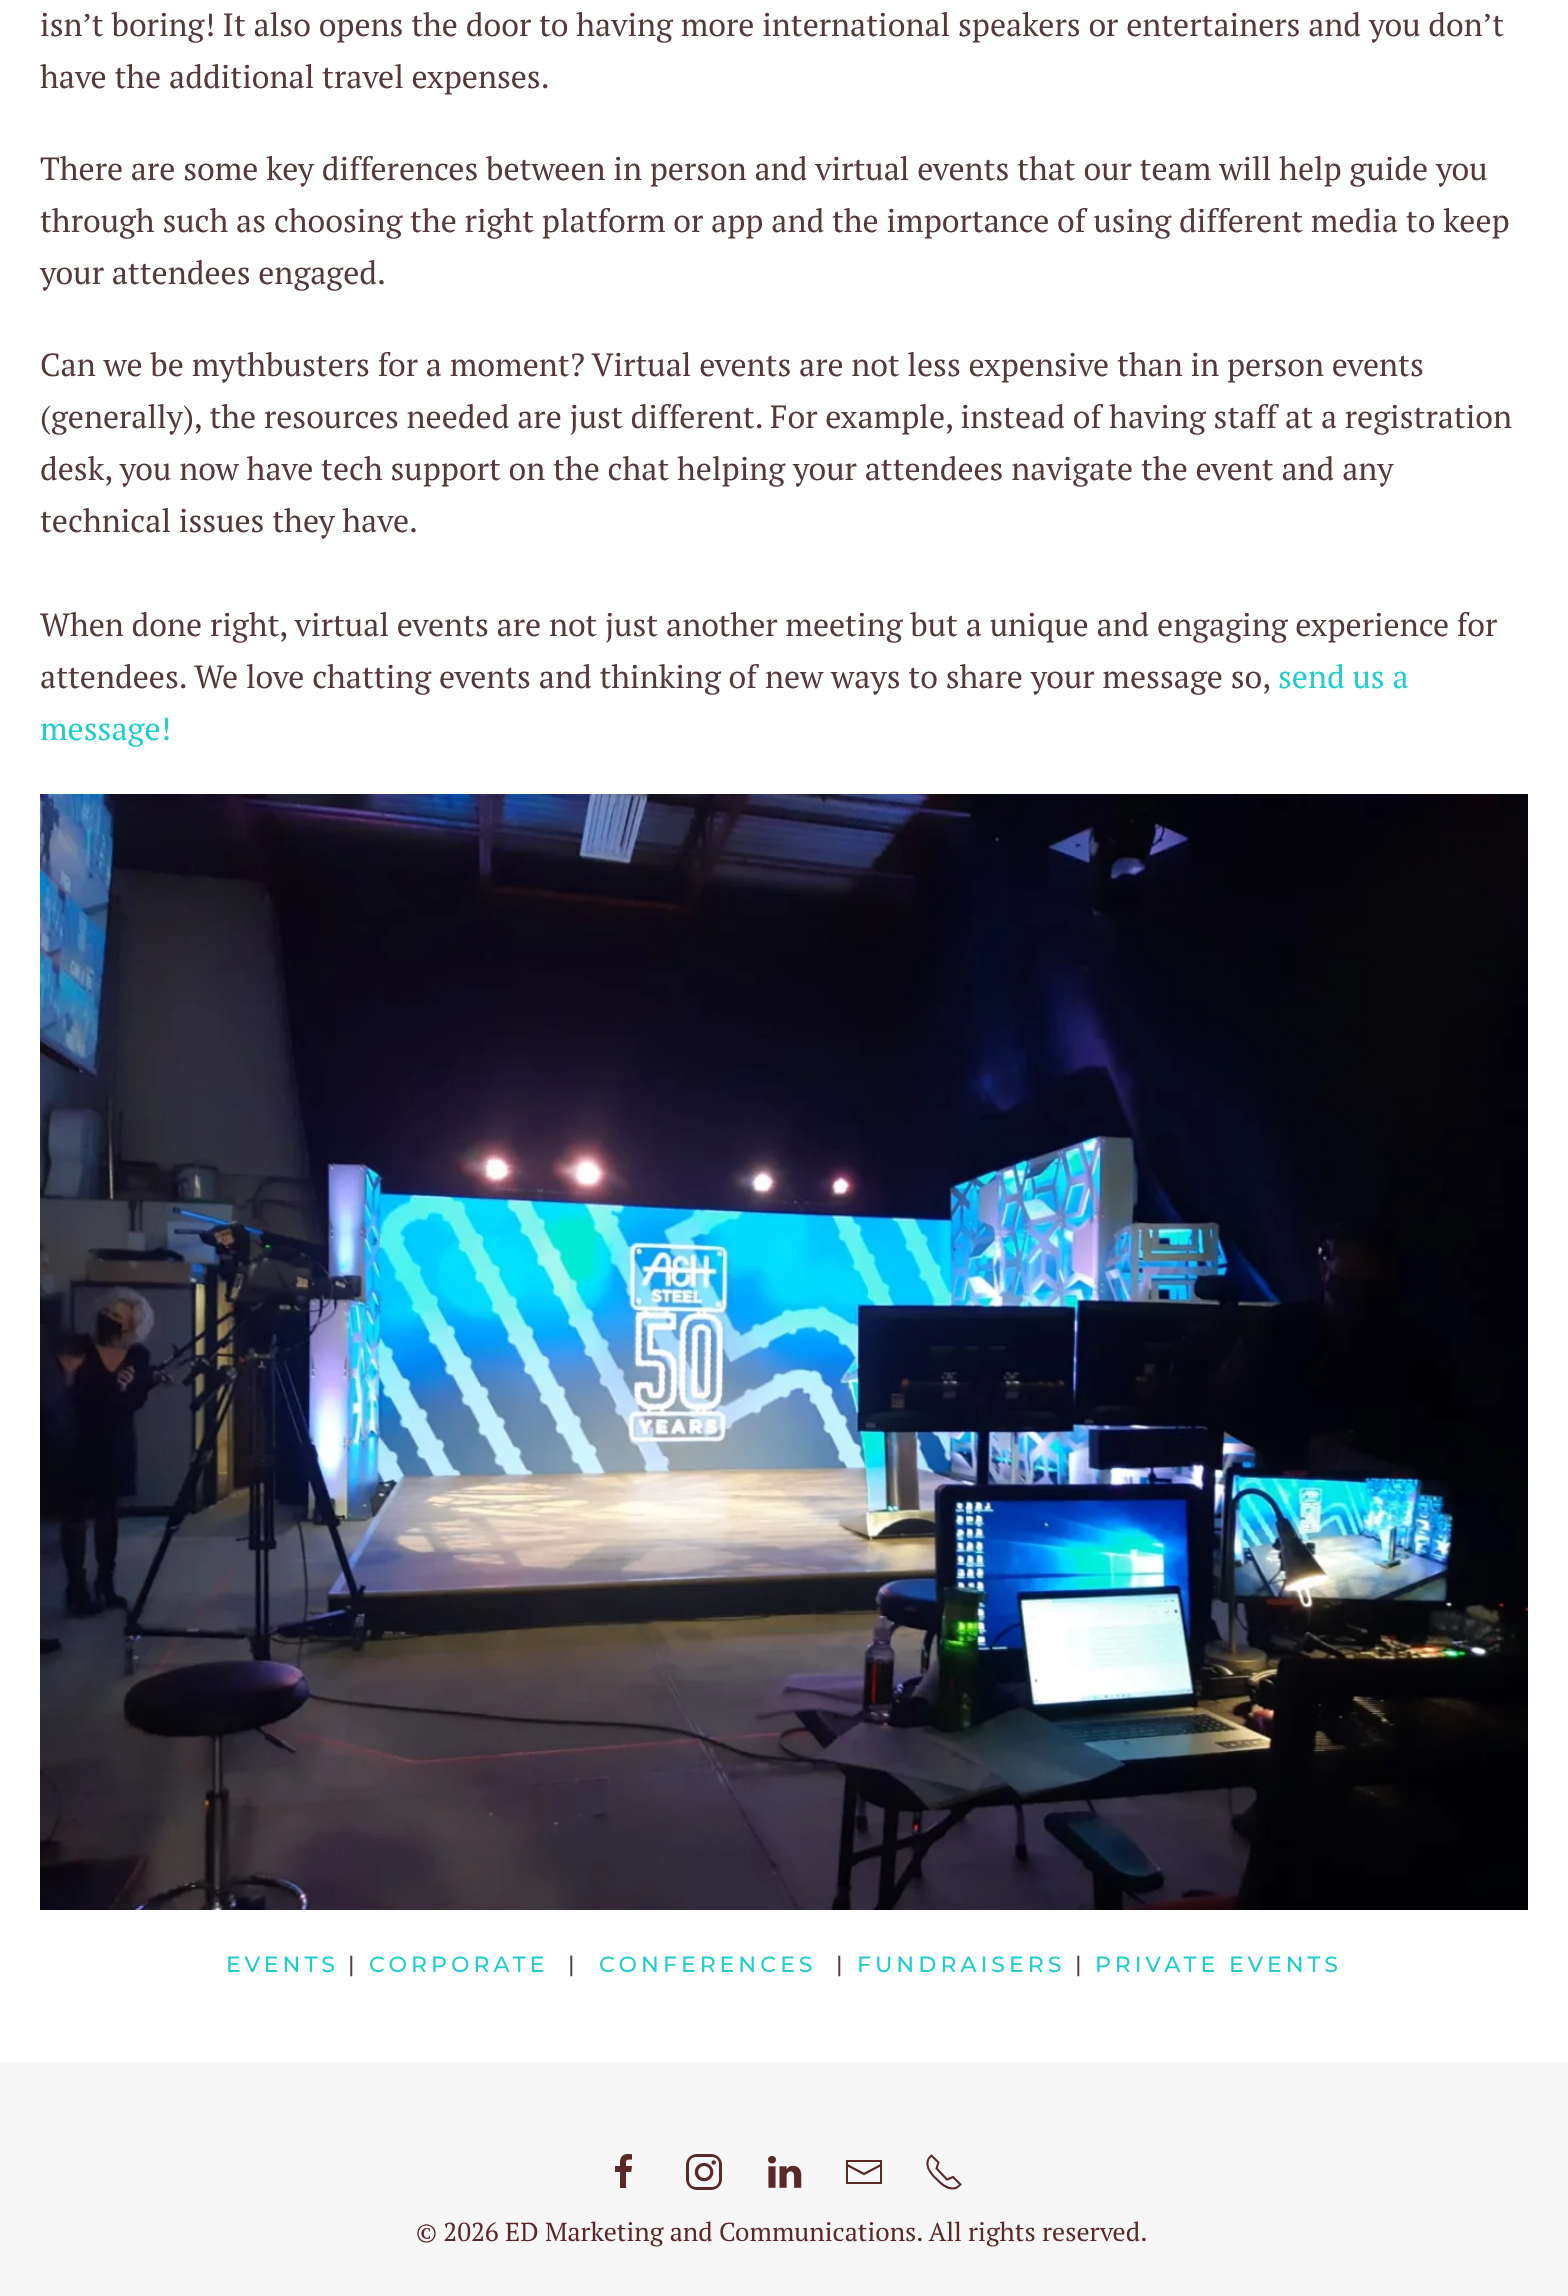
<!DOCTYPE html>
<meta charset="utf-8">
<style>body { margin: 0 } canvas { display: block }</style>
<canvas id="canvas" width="1568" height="2296"></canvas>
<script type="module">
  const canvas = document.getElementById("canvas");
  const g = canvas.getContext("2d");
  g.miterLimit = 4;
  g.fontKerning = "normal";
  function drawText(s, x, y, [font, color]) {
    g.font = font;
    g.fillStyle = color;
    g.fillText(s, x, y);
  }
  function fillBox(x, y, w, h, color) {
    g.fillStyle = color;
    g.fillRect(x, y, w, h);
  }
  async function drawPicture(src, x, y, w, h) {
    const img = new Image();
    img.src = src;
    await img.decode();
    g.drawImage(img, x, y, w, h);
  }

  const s1 = ["32px PT Serif", "#553939"];
  const s2 = ["32px PT Serif", "#23CCCC"];
  const s3 = ["100 22px Montserrat", "#23CCCC"];
  const s4 = ["100 22px Montserrat", "#553939"];
  const s5 = ["26px PT Serif", "#5C2727"];

  fillBox(0, 0, 1568, 2296, "#FFFFFF");
  drawText("isn’t boring! It also opens the door to having more international speakers or entertainers and you don’t", 40, 36, s1);
  drawText("have the additional travel expenses.", 40, 88, s1);
  drawText("There are some key differences between in person and virtual events that our team will help guide you", 40, 180, s1);
  drawText("through such as choosing the right platform or app and the importance of using different media to keep", 40, 232, s1);
  drawText("your attendees engaged.", 40, 284, s1);
  drawText("Can we be mythbusters for a moment? Virtual events are not less expensive than in person events", 40, 376, s1);
  drawText("(generally), the resources needed are just different. For example, instead of having staff at a registration", 40, 428, s1);
  drawText("desk, you now have tech support on the chat helping your attendees navigate the event and any", 40, 480, s1);
  drawText("technical issues they have.", 40, 532, s1);
  drawText("When done right, virtual events are not just another meeting but a unique and engaging experience for", 40, 636, s1);
  drawText("attendees. We love chatting events and thinking of new ways to share your message so,", 40, 688, s1);
  drawText("send us a", 1278, 688, s2);
  drawText("message!", 40, 740, s2);
  await drawPicture("pic1.png", 40, 794, 1488, 1116);
  g.letterSpacing = "4px";
  drawText("EVENTS", 226, 1972, s3);
  drawText("|", 348, 1972, s4);
  drawText("CORPORATE", 369, 1972, s3);
  drawText("|", 568, 1972, s4);
  drawText("CONFERENCES", 599, 1972, s3);
  drawText("|", 836, 1972, s4);
  drawText("FUNDRAISERS", 857, 1972, s3);
  drawText("|", 1075, 1972, s4);
  drawText("PRIVATE EVENTS", 1095, 1972, s3);
  fillBox(0, 2062, 1568, 234, "#F7F7F7");
  await drawPicture("pic2.png", 615, 2154, 17, 34);
  await drawPicture("pic3.png", 686, 2154, 36, 36);
  await drawPicture("pic4.png", 768, 2156, 34, 32);
  g.beginPath();
  g.moveTo(847, 2165);
  g.lineTo(864, 2174);
  g.lineTo(881, 2165);
  g.strokeStyle = "#5C2727";
  g.lineWidth = 2;
  g.stroke();
  g.fillStyle = "#5C2727";
  g.beginPath();
  g.moveTo(846, 2160);
  g.lineTo(846, 2184);
  g.lineTo(882, 2184);
  g.lineTo(882, 2160);
  g.closePath();
  g.moveTo(880, 2182);
  g.lineTo(848, 2182);
  g.lineTo(848, 2162);
  g.lineTo(880, 2162);
  g.closePath();
  g.fill();
  g.beginPath();
  g.moveTo(936.5, 2179);
  g.bezierCurveTo(941.5, 2184.5, 949, 2191, 957, 2187.5);
  g.lineTo(960.5, 2184.5);
  g.lineTo(953, 2177);
  g.lineTo(947, 2179.5);
  g.lineTo(936.5, 2168.5);
  g.lineTo(938.5, 2162.5);
  g.lineTo(931.5, 2155.5);
  g.bezierCurveTo(922.5, 2163, 930, 2173, 936.5, 2179);
  g.stroke();
  g.letterSpacing = "0px";
  drawText("© 2026 ED Marketing and Communications. All rights reserved.", 416, 2241, s5);
</script>
